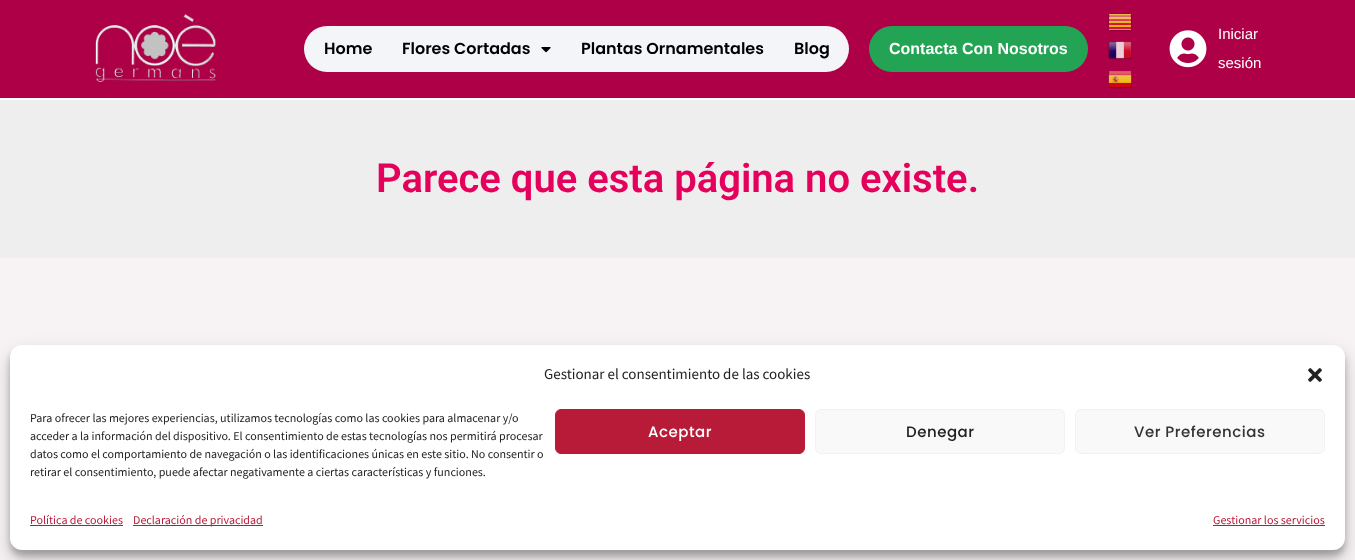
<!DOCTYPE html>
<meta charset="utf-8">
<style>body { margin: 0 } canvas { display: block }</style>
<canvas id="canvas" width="1355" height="560"></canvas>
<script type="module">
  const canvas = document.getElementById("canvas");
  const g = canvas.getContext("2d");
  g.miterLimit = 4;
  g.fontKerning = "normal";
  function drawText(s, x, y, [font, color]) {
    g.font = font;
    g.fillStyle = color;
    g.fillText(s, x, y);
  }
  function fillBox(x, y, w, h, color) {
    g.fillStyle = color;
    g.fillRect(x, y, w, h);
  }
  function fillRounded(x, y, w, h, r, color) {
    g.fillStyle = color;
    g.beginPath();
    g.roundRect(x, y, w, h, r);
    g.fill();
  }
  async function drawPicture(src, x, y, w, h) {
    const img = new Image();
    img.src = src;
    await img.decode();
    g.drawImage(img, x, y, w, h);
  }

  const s1 = ["600 16px Poppins", "#000000"];
  const s2 = ["bold 16px Liberation Sans", "#FFFFFF"];
  const s3 = ["15px Liberation Sans", "#FFFFFF"];
  const s4 = ["600 40px Roboto", "#E5005C"];
  const s5 = ["15px Source Sans Pro", "#222222"];
  const s6 = ["12px Source Sans Pro", "#222222"];
  const s7 = ["500 15px Poppins", "#FFFFFF"];
  const s8 = ["500 15px Poppins", "#222222"];
  const s9 = ["500 15px Poppins", "#333333"];
  const s10 = ["12px Source Sans Pro", "#B81B37"];

  fillBox(0, 0, 1355, 560, "#F7F3F5");
  fillBox(0, 0, 1355, 98, "#AE0047");
  fillBox(0, 98, 1355, 2, "#FFFFFF");
  await drawPicture("pic1.png", 95, 14, 121, 68);
  fillRounded(304, 26, 545, 46, 23, "#F3F5F8");
  drawText("Home", 324, 54, s1);
  drawText("Flores Cortadas", 402, 54, s1);
  await drawPicture("pic2.png", 541, 47, 10, 6);
  drawText("Plantas Ornamentales", 581, 54, s1);
  drawText("Blog", 794, 54, s1);
  fillRounded(869, 26, 219, 46, 23, "#23A455");
  drawText("Contacta Con Nosotros", 889, 54, s2);
  await drawPicture("pic3.png", 1108, 13, 24, 19);
  await drawPicture("pic4.png", 1108, 41, 24, 19);
  await drawPicture("pic5.png", 1108, 70, 24, 19);
  await drawPicture("pic6.png", 1169, 30, 38, 38);
  drawText("Iniciar", 1218, 39, s3);
  drawText("sesión", 1218, 68, s3);
  fillBox(0, 100, 1355, 158, "#EEEEEE");
  drawText("Parece que esta página no existe.", 376, 192, s4);
  g.fillStyle = "rgba(0, 0, 0, 0.23)";
  g.filter = "blur(3px)";
  g.beginPath();
  g.roundRect(10, 351, 1335, 205, 12);
  g.fill();
  g.filter = "none";
  g.fillStyle = "rgba(0, 0, 0, 0.19)";
  g.filter = "blur(10px)";
  g.beginPath();
  g.roundRect(10, 355, 1335, 205, 12);
  g.fill();
  g.filter = "none";
  fillRounded(10, 345, 1335, 205, 12, "#FFFFFF");
  drawText("Gestionar el consentimiento de las cookies", 544, 379, s5);
  await drawPicture("pic7.png", 1308, 368, 14, 14);
  drawText("Para ofrecer las mejores experiencias, utilizamos tecnologías como las cookies para almacenar y/o", 30, 422, s6);
  drawText("acceder a la información del dispositivo. El consentimiento de estas tecnologías nos permitirá procesar", 30, 440, s6);
  drawText("datos como el comportamiento de navegación o las identificaciones únicas en este sitio. No consentir o", 30, 458, s6);
  drawText("retirar el consentimiento, puede afectar negativamente a ciertas características y funciones.", 30, 476, s6);
  g.fillStyle = "#B81B37";
  g.beginPath();
  g.roundRect(555.5, 409.5, 249, 44, 5.5);
  g.fill();
  g.strokeStyle = "#B81B37";
  g.stroke();
  g.letterSpacing = "0.5px";
  drawText("Aceptar", 648, 437, s7);
  g.fillStyle = "#F9F9F9";
  g.beginPath();
  g.roundRect(815.5, 409.5, 249, 44, 5.5);
  g.fill();
  g.strokeStyle = "#F2F2F2";
  g.stroke();
  drawText("Denegar", 906, 437, s8);
  g.fillStyle = "#F9F9F9";
  g.beginPath();
  g.roundRect(1075.5, 409.5, 249, 44, 5.5);
  g.fill();
  g.stroke();
  drawText("Ver Preferencias", 1134, 437, s9);
  g.letterSpacing = "0px";
  drawText("Política de cookies", 30, 524, s10);
  fillBox(30, 525, 93, 1, "#B81B37");
  fillBox(133, 525, 130, 1, "#B81B37");
  drawText("Declaración de privacidad", 133, 524, s10);
  drawText("Gestionar los servicios", 1213, 524, s10);
  fillBox(1213, 525, 112, 1, "#B81B37");
</script>
